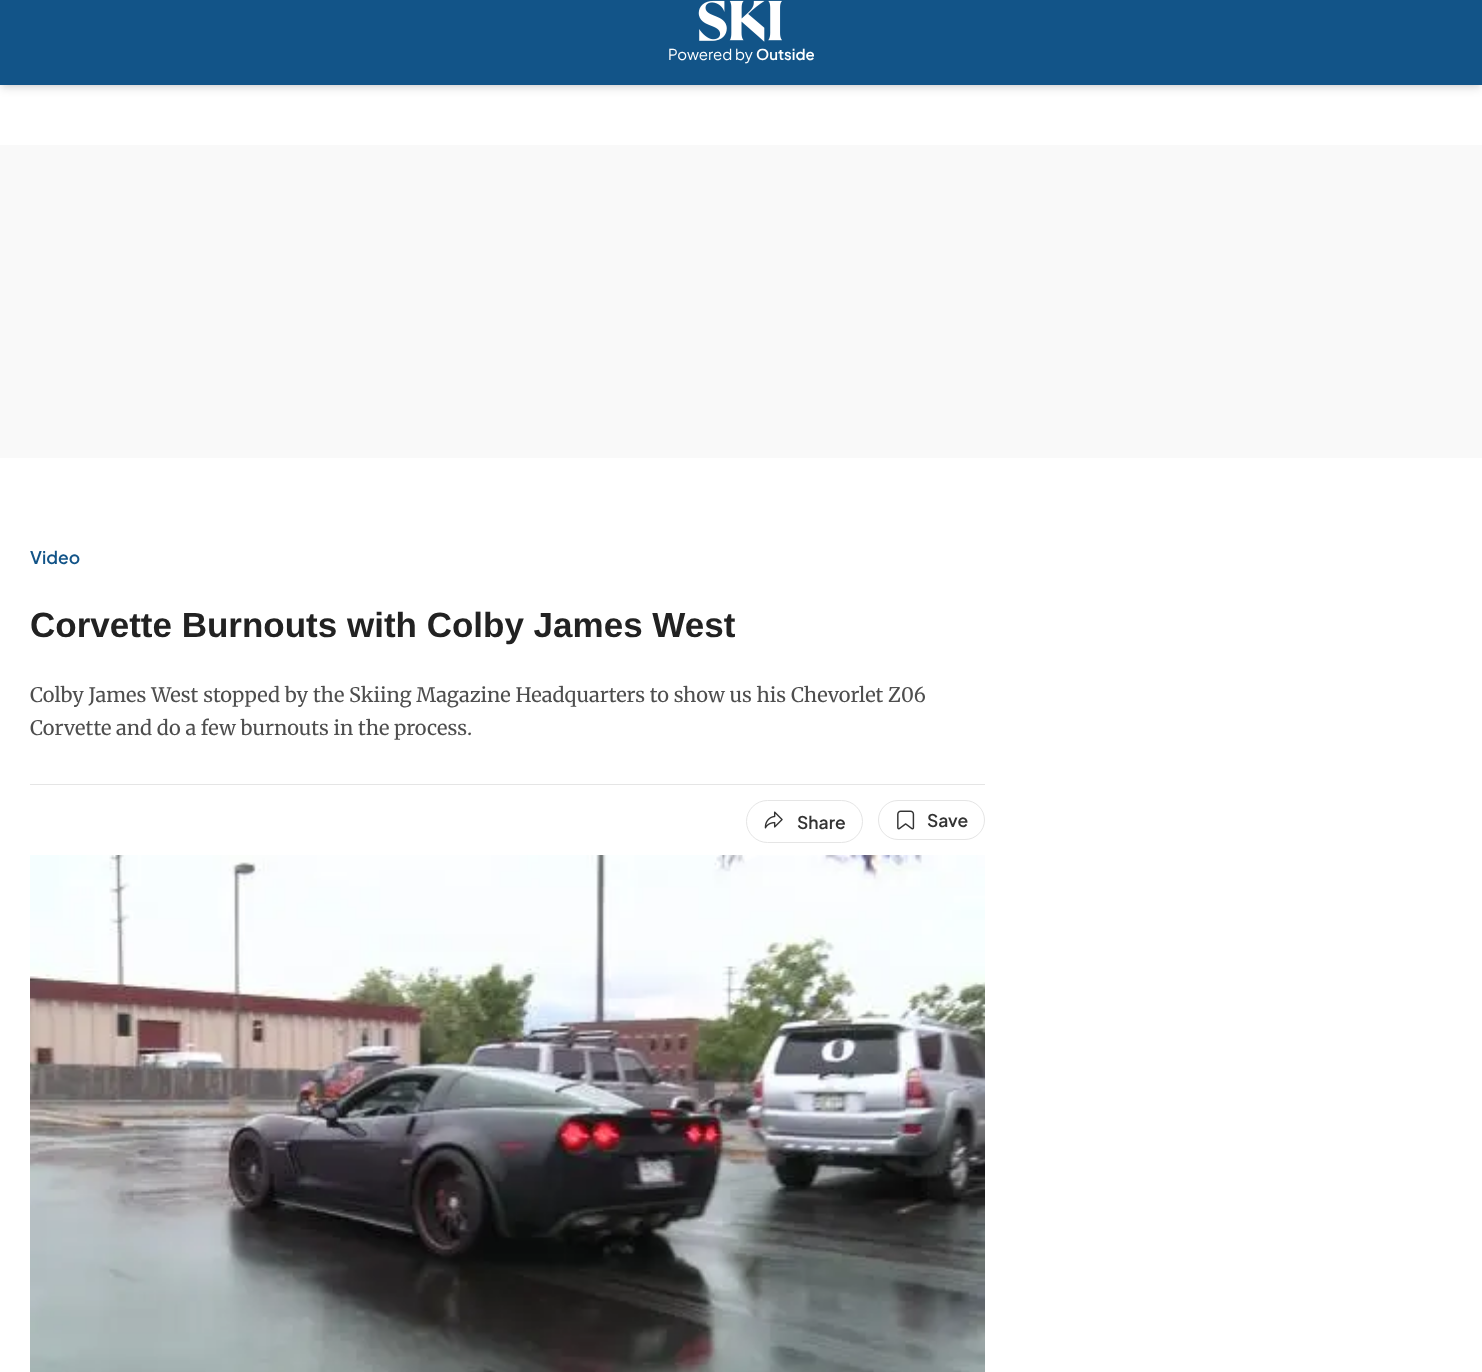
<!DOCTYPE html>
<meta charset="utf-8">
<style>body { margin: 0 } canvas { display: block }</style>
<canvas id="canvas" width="1482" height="1372"></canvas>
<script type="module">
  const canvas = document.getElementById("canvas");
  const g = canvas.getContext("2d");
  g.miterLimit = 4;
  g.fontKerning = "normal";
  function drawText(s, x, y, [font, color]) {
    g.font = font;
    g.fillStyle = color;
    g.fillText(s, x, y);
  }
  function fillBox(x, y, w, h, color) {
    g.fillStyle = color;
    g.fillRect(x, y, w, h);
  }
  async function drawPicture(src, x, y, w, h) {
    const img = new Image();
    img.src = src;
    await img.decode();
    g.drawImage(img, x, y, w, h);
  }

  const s1 = ["15px Plus Jakarta Sans", "#FFFFFF"];
  const s2 = ["600 15px Plus Jakarta Sans", "#FFFFFF"];
  const s3 = ["600 17.5px Plus Jakarta Sans", "#125488"];
  const s4 = ["bold 35px Liberation Sans", "#222222"];
  const s5 = ["20px Merriweather", "#4E4E4E"];
  const s6 = ["600 17.5px Plus Jakarta Sans", "#333333"];

  fillBox(0, 0, 1482, 1372, "#FFFFFF");
  g.fillStyle = "rgba(0, 0, 0, 0.1)";
  g.filter = "blur(2.5px)";
  g.beginPath();
  g.rect(3, 5, 1477, 80);
  g.fill();
  g.filter = "none";
  g.filter = "blur(4px)";
  g.beginPath();
  g.rect(1, 6, 1480, 83);
  g.fill();
  g.filter = "none";
  fillBox(0, 0, 1482, 85, "#125488");
  await drawPicture("pic1.png", 698, 0, 84, 42);
  drawText("Powered by", 668, 60, s1);
  drawText("Outside", 756, 60, s2);
  fillBox(0, 145, 1482, 313, "#F9F9F9");
  drawText("Video", 30, 564, s3);
  drawText("Corvette Burnouts with Colby James West", 30, 637, s4);
  drawText("Colby James West stopped by the Skiing Magazine Headquarters to show us his Chevorlet Z06", 30, 702, s5);
  drawText("Corvette and do a few burnouts in the process.", 30, 735, s5);
  fillBox(30, 784, 955, 1, "#E5E5E5");
  g.beginPath();
  g.roundRect(746.5, 800.5, 116, 42, 21);
  g.strokeStyle = "#E5E5E5";
  g.stroke();
  await drawPicture("pic2.png", 764, 811, 19, 18);
  drawText("Share", 797, 829, s6);
  g.beginPath();
  g.roundRect(878.5, 800.5, 106, 39, 19.5);
  g.stroke();
  await drawPicture("pic3.png", 897, 810, 18, 20);
  drawText("Save", 927, 827, s6);
  await drawPicture("pic4.png", 30, 855, 955, 517);
</script>
